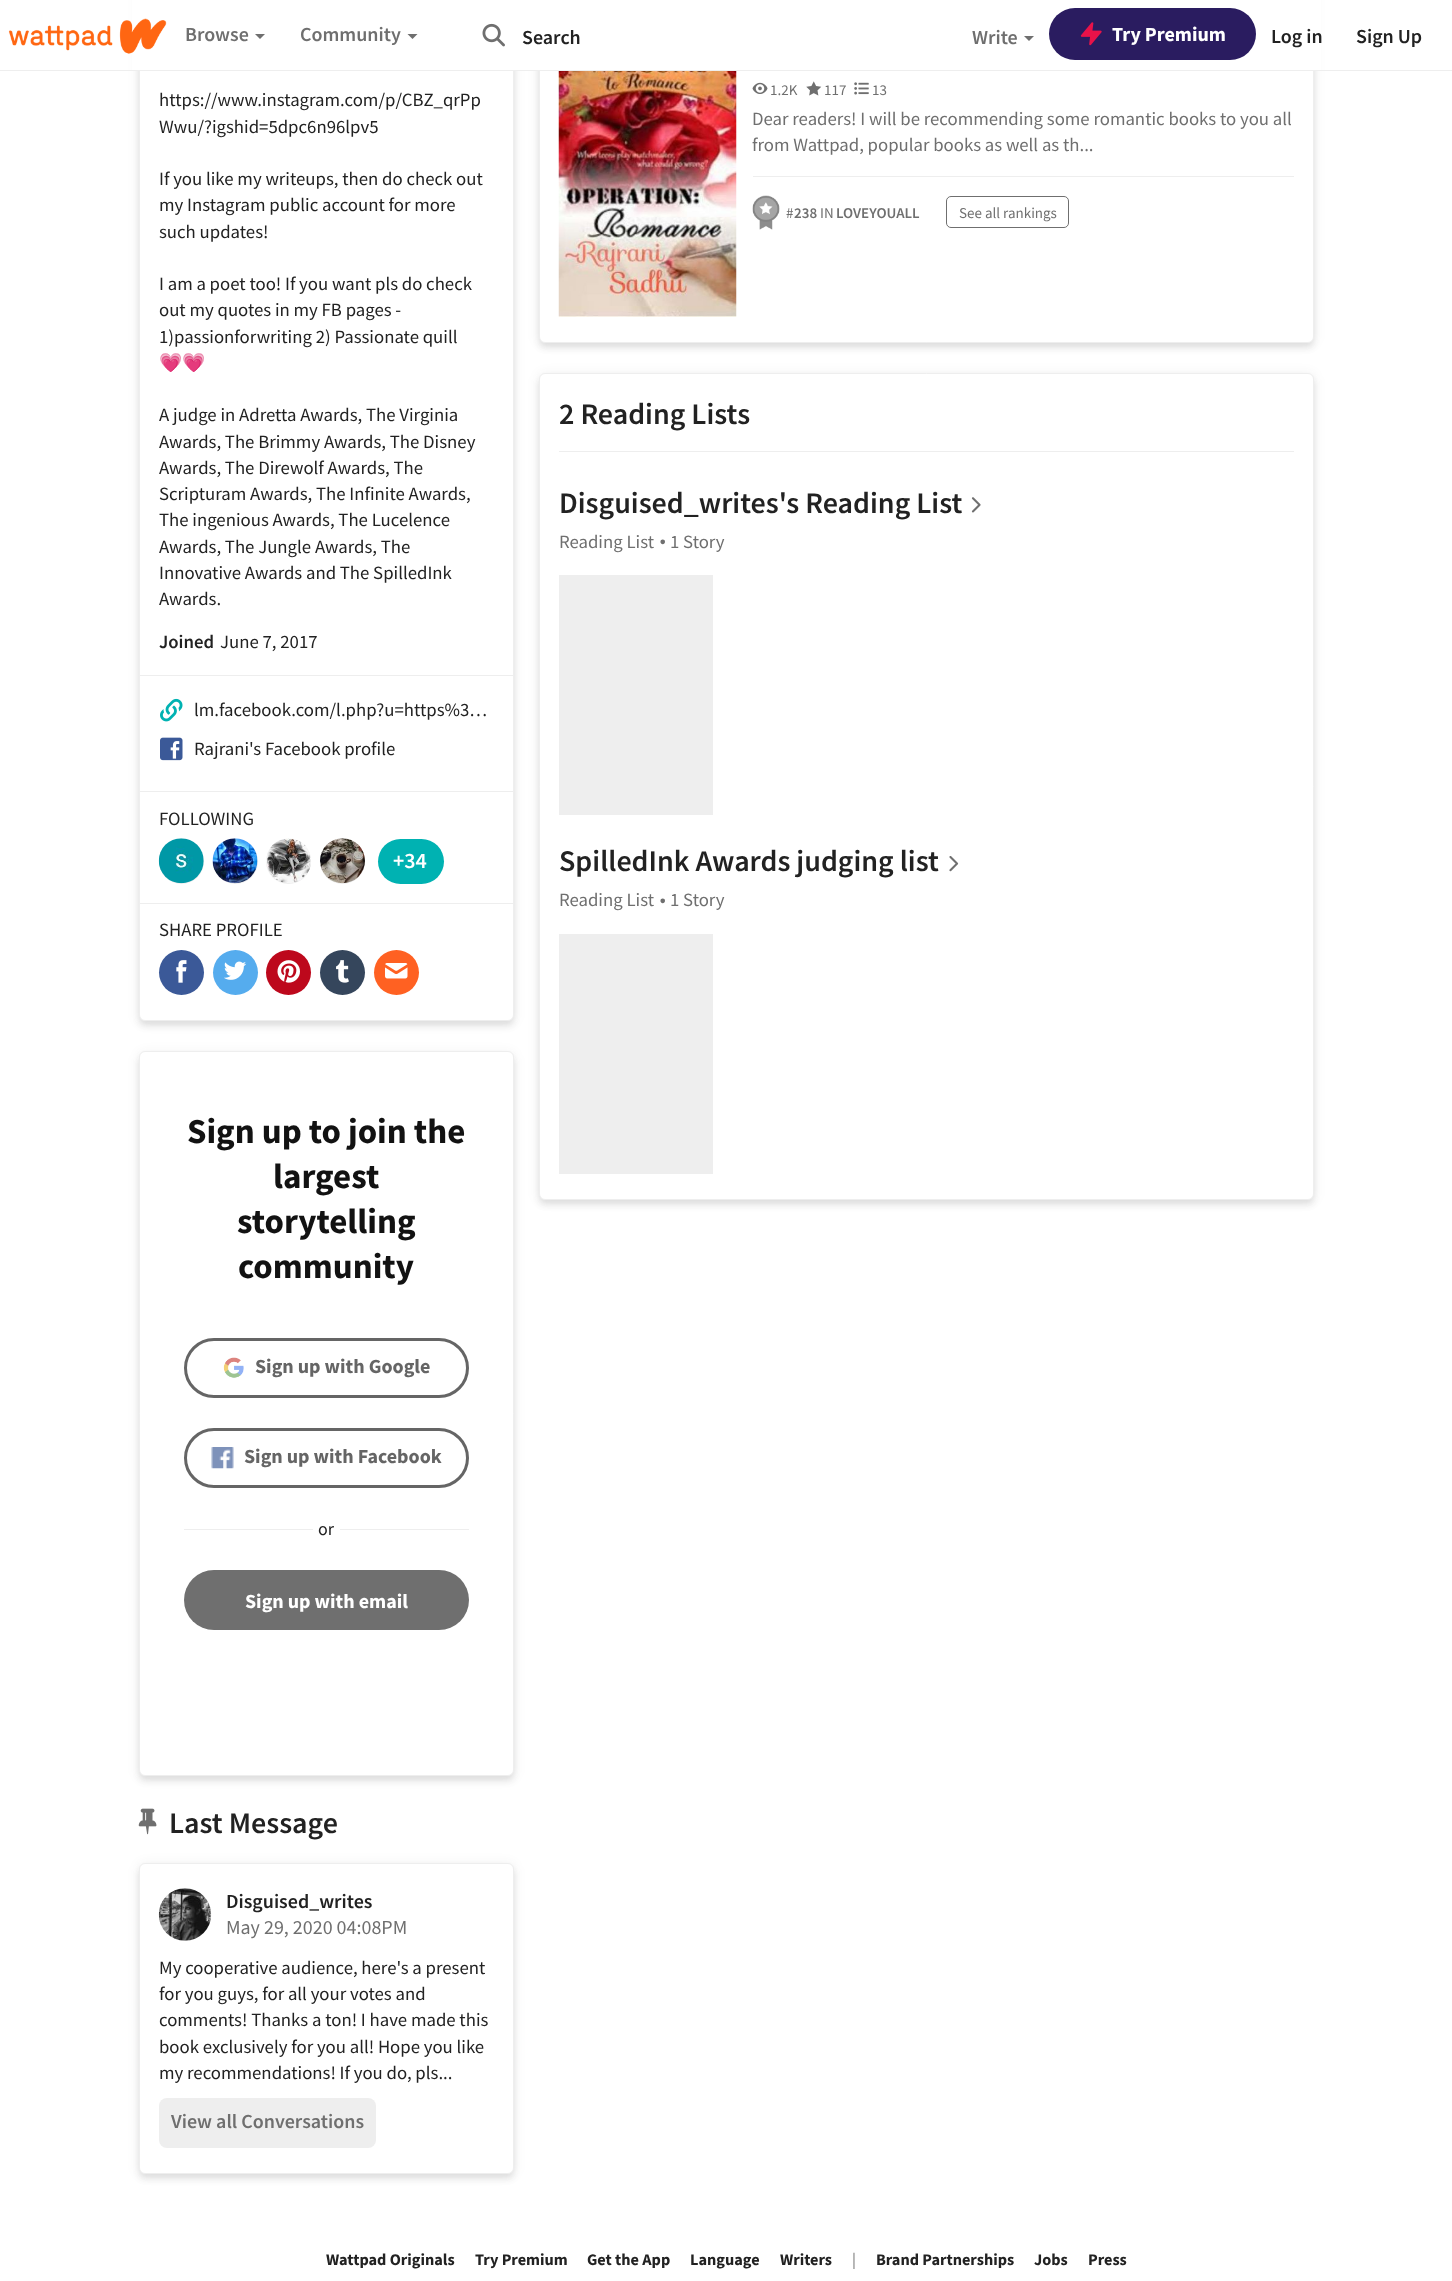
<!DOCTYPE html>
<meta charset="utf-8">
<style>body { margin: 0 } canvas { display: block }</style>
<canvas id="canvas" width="1452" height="2281"></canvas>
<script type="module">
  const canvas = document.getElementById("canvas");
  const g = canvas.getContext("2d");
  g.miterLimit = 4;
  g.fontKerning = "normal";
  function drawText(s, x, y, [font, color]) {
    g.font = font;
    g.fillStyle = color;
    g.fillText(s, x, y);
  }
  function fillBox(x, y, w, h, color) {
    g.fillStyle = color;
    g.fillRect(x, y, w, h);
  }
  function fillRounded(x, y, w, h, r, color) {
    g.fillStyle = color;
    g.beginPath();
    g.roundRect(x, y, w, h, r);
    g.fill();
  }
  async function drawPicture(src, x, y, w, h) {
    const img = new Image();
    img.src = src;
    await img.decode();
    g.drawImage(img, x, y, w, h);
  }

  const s1 = ["600 20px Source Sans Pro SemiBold", "#6F6F6F"];
  const s2 = ["600 20px Source Sans Pro SemiBold", "#222222"];
  const s3 = ["bold 20px Source Sans Pro", "#FFFFFF"];
  const s4 = ["18.75px Source Sans Pro", "#222222"];
  const s5 = ["18.75px Noto Color Emoji", "#222222"];
  const s6 = ["600 18.75px Source Sans Pro SemiBold", "#222222"];
  const s7 = ["600 22px Source Sans Pro SemiBold", "#FFFFFF"];
  const s8 = ["bold 35px Source Sans Pro", "#121212"];
  const s9 = ["bold 20px Source Sans Pro", "#656565"];
  const s10 = ["18px Source Sans Pro", "#222222"];
  const s11 = ["600 30px Source Sans Pro SemiBold", "#222222"];
  const s12 = ["20px Source Sans Pro", "#6F6F6F"];
  const s13 = ["15px Source Sans Pro", "#6F6F6F"];
  const s14 = ["18.75px Source Sans Pro", "#6F6F6F"];
  const s15 = ["600 15px Source Sans Pro SemiBold", "#6F6F6F"];
  const s16 = ["38px Source Sans Pro", "#6F6F6F"];
  const s17 = ["bold 16.25px Source Sans Pro", "#222222"];
  const s18 = ["16.25px Source Sans Pro", "#6F6F6F"];

  fillBox(0, 0, 1452, 2281, "#FFFFFF");
  g.fillStyle = "rgba(34, 34, 34, 0.1)";
  g.filter = "blur(3px)";
  g.beginPath();
  g.roundRect(139, -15, 375, 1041, 6);
  g.fill();
  g.filter = "none";
  g.fillStyle = "rgba(34, 34, 34, 0.08)";
  g.filter = "blur(6px)";
  g.beginPath();
  g.roundRect(139, -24, 375, 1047, 6);
  g.fill();
  g.filter = "none";
  g.fillStyle = "#FFFFFF";
  g.beginPath();
  g.roundRect(139.5, -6.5, 374, 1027, 5.5);
  g.fill();
  g.strokeStyle = "#EEEEEE";
  g.stroke();
  g.fillStyle = "rgba(34, 34, 34, 0.1)";
  g.filter = "blur(3px)";
  g.beginPath();
  g.roundRect(539, -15, 775, 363, 6);
  g.fill();
  g.filter = "none";
  g.fillStyle = "rgba(34, 34, 34, 0.08)";
  g.filter = "blur(6px)";
  g.beginPath();
  g.roundRect(539, -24, 775, 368, 6);
  g.fill();
  g.filter = "none";
  g.fillStyle = "#FFFFFF";
  g.beginPath();
  g.roundRect(539.5, -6.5, 774, 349, 5.5);
  g.fill();
  g.stroke();
  fillBox(132, 0, 1189, 70, "#FFFFFF");
  fillBox(0, 70, 1452, 1, "#EEEEEE");
  await drawPicture("pic1.png", 8, 18, 159, 36);
  drawText("Browse", 185, 41, s1);
  g.beginPath();
  g.moveTo(255, 34);
  g.lineTo(265, 34);
  g.lineTo(260, 39);
  g.closePath();
  g.fill();
  drawText("Community", 300, 41, s1);
  g.beginPath();
  g.moveTo(407.5, 34);
  g.lineTo(417.5, 34);
  g.lineTo(412.5, 39);
  g.closePath();
  g.fill();
  await drawPicture("pic2.png", 482, 23, 23, 24);
  drawText("Search", 522, 44, s2);
  drawText("Write", 972, 44, s1);
  g.beginPath();
  g.moveTo(1024, 36);
  g.lineTo(1034, 36);
  g.lineTo(1029, 41);
  g.closePath();
  g.fill();
  fillRounded(1049, 8, 207, 52, 26, "#2A1C60");
  await drawPicture("pic3.png", 1080, 22, 22, 24);
  drawText("Try Premium", 1112, 41, s3);
  drawText("Log in", 1271, 43, s2);
  drawText("Sign Up", 1356, 43, s2);
  drawText("https://www.instagram.com/p/CBZ_qrPp", 159, 106, s4);
  drawText("Wwu/?igshid=5dpc6n96lpv5", 159, 133, s4);
  drawText("If you like my writeups, then do check out", 159, 185, s4);
  drawText("my Instagram public account for more", 159, 211, s4);
  drawText("such updates!", 159, 238, s4);
  drawText("I am a poet too! If you want pls do check", 159, 290, s4);
  drawText("out my quotes in my FB pages -", 159, 316, s4);
  drawText("1)passionforwriting 2) Passionate quill", 159, 343, s4);
  g.save();
  g.beginPath();
  g.rect(159, 0, 335, 611);
  g.clip();
  drawText("💗💗", 159, 369, s5);
  g.restore();
  drawText("A judge in Adretta Awards, The Virginia", 159, 421, s4);
  drawText("Awards, The Brimmy Awards, The Disney", 159, 448, s4);
  drawText("Awards, The Direwolf Awards, The", 159, 474, s4);
  drawText("Scripturam Awards, The Infinite Awards,", 159, 500, s4);
  drawText("The ingenious Awards, The Lucelence", 159, 526, s4);
  drawText("Awards, The Jungle Awards, The", 159, 553, s4);
  drawText("Innovative Awards and The SpilledInk", 159, 579, s4);
  drawText("Awards.", 159, 605, s4);
  drawText("Joined", 159, 648, s6);
  drawText("June 7, 2017", 220, 648, s4);
  fillBox(140, 675, 373, 1, "#EEEEEE");
  await drawPicture("pic4.png", 160, 698, 23, 24);
  drawText("lm.facebook.com/l.php?u=https%3…", 194, 716, s4);
  await drawPicture("pic5.png", 160, 737, 23, 24);
  drawText("Rajrani's Facebook profile", 194, 755, s4);
  fillBox(140, 791, 373, 1, "#EEEEEE");
  drawText("FOLLOWING", 159, 825, s4);
  g.fillStyle = "#EEEEEE";
  g.beginPath();
  g.arc(181.5, 861.5, 22.5, 0, Math.PI * 2);
  g.fill();
  await drawPicture("pic6.png", 158, 838, 46, 46);
  g.beginPath();
  g.arc(235.5, 861.5, 22.5, 0, Math.PI * 2);
  g.fill();
  await drawPicture("pic7.png", 212, 838, 46, 46);
  g.beginPath();
  g.arc(288.5, 861.5, 22.5, 0, Math.PI * 2);
  g.fill();
  await drawPicture("pic8.png", 266, 838, 45, 45);
  g.beginPath();
  g.arc(342.5, 861.5, 22.5, 0, Math.PI * 2);
  g.fill();
  await drawPicture("pic9.png", 320, 838, 45, 46);
  fillRounded(378, 839, 66, 45, 22.5, "#00B2B2");
  drawText("+34", 393, 868, s7);
  fillBox(140, 903, 373, 1, "#EEEEEE");
  drawText("SHARE PROFILE", 159, 936, s4);
  g.fillStyle = "#3B5998";
  g.beginPath();
  g.arc(181.5, 972.5, 22.5, 0, Math.PI * 2);
  g.fill();
  await drawPicture("pic10.png", 176, 960, 11, 23);
  g.fillStyle = "#55ACEE";
  g.beginPath();
  g.arc(235.5, 972.5, 22.5, 0, Math.PI * 2);
  g.fill();
  await drawPicture("pic11.png", 224, 961, 23, 19);
  g.fillStyle = "#BD081C";
  g.beginPath();
  g.arc(288.5, 972.5, 22.5, 0, Math.PI * 2);
  g.fill();
  await drawPicture("pic12.png", 277, 960, 23, 23);
  g.fillStyle = "#35465C";
  g.beginPath();
  g.arc(342.5, 972.5, 22.5, 0, Math.PI * 2);
  g.fill();
  await drawPicture("pic13.png", 336, 960, 13, 23);
  g.fillStyle = "#FF6122";
  g.beginPath();
  g.arc(396.5, 972.5, 22.5, 0, Math.PI * 2);
  g.fill();
  await drawPicture("pic14.png", 385, 963, 23, 16);
  g.fillStyle = "rgba(34, 34, 34, 0.1)";
  g.filter = "blur(3px)";
  g.beginPath();
  g.roundRect(139, 1056, 375, 725, 6);
  g.fill();
  g.filter = "none";
  g.fillStyle = "rgba(34, 34, 34, 0.08)";
  g.filter = "blur(6px)";
  g.beginPath();
  g.roundRect(139, 1053, 375, 725, 6);
  g.fill();
  g.filter = "none";
  g.fillStyle = "#FFFFFF";
  g.beginPath();
  g.roundRect(139.5, 1051.5, 374, 724, 5.5);
  g.fill();
  g.stroke();
  drawText("Sign up to join the", 187, 1143, s8);
  drawText("largest", 273, 1188, s8);
  drawText("storytelling", 237, 1233, s8);
  drawText("community", 238, 1278, s8);
  g.beginPath();
  g.roundRect(185.5, 1339.5, 282, 57, 28.5);
  g.strokeStyle = "#656565";
  g.lineWidth = 3;
  g.stroke();
  await drawPicture("pic15.png", 223, 1357, 21, 21);
  drawText("Sign up with Google", 255, 1373, s9);
  g.beginPath();
  g.roundRect(185.5, 1429.5, 282, 57, 28.5);
  g.stroke();
  await drawPicture("pic16.png", 211, 1447, 23, 22);
  drawText("Sign up with Facebook", 244, 1463, s9);
  fillBox(184, 1529, 129, 1, "#EEEEEE");
  drawText("or", 318, 1535, s10);
  fillBox(340, 1529, 129, 1, "#EEEEEE");
  fillRounded(184, 1570, 285, 60, 30, "#6F6F6F");
  drawText("Sign up with email", 245, 1608, s3);
  await drawPicture("pic17.png", 138, 1808, 19, 27);
  drawText("Last Message", 169, 1833, s11);
  g.fillStyle = "rgba(34, 34, 34, 0.1)";
  g.filter = "blur(3px)";
  g.beginPath();
  g.roundRect(139, 1868, 375, 311, 6);
  g.fill();
  g.filter = "none";
  g.fillStyle = "rgba(34, 34, 34, 0.08)";
  g.filter = "blur(6px)";
  g.beginPath();
  g.roundRect(139, 1864, 375, 311, 6);
  g.fill();
  g.filter = "none";
  g.fillStyle = "#FFFFFF";
  g.beginPath();
  g.roundRect(139.5, 1863.5, 374, 310, 5.5);
  g.fill();
  g.strokeStyle = "#EEEEEE";
  g.lineWidth = 1;
  g.stroke();
  g.fillStyle = "#EEEEEE";
  g.beginPath();
  g.arc(185, 1915, 26, 0, Math.PI * 2);
  g.fill();
  await drawPicture("pic18.png", 158, 1888, 54, 53);
  drawText("Disguised_writes", 226, 1908, s2);
  drawText("May 29, 2020 04:08PM", 226, 1934, s12);
  drawText("My cooperative audience, here's a present", 159, 1974, s4);
  drawText("for you guys, for all your votes and", 159, 2000, s4);
  drawText("comments! Thanks a ton! I have made this", 159, 2026, s4);
  drawText("book exclusively for you all! Hope you like", 159, 2053, s4);
  drawText("my recommendations! If you do, pls...", 159, 2079, s4);
  fillRounded(159, 2098, 217, 50, 8, "#EEEEEE");
  drawText("View all Conversations", 171, 2128, s1);
  await drawPicture("pic19.png", 558, 71, 179, 246);
  await drawPicture("pic20.png", 752, 82, 16, 12);
  drawText("1.2K", 770, 95, s13);
  await drawPicture("pic21.png", 806, 81, 16, 15);
  drawText("117", 824, 95, s13);
  await drawPicture("pic22.png", 854, 82, 15, 13);
  drawText("13", 872, 95, s13);
  drawText("Dear readers! I will be recommending some romantic books to you all", 752, 125, s14);
  drawText("from Wattpad, popular books as well as th...", 752, 151, s14);
  fillBox(753, 176, 541, 1, "#EEEEEE");
  await drawPicture("pic23.png", 752, 195, 28, 35);
  drawText("#", 786, 218, s13);
  drawText("238", 794, 218, s15);
  drawText("IN", 820, 218, s13);
  drawText("LOVEYOUALL", 836, 218, s15);
  g.beginPath();
  g.roundRect(946.5, 196.5, 122, 31, 4.5);
  g.strokeStyle = "#6F6F6F";
  g.stroke();
  drawText("See all rankings", 959, 218, s13);
  g.fillStyle = "rgba(34, 34, 34, 0.1)";
  g.filter = "blur(3px)";
  g.beginPath();
  g.roundRect(539, 378, 775, 827, 6);
  g.fill();
  g.filter = "none";
  g.fillStyle = "rgba(34, 34, 34, 0.08)";
  g.filter = "blur(6px)";
  g.beginPath();
  g.roundRect(539, 374, 775, 827, 6);
  g.fill();
  g.filter = "none";
  g.fillStyle = "#FFFFFF";
  g.beginPath();
  g.roundRect(539.5, 373.5, 774, 826, 5.5);
  g.fill();
  g.strokeStyle = "#EEEEEE";
  g.stroke();
  drawText("2 Reading Lists", 559, 424, s11);
  fillBox(559, 451, 735, 1, "#EEEEEE");
  drawText("Disguised_writes's Reading List", 559, 513, s11);
  await drawPicture("pic24.png", 971, 497, 10, 16);
  drawText("Reading List", 559, 548, s14);
  drawText("·", 658, 554, s16);
  drawText("1 Story", 670, 548, s14);
  fillBox(559, 575, 154, 240, "#EEEEEE");
  drawText("SpilledInk Awards judging list", 559, 871, s11);
  await drawPicture("pic25.png", 949, 856, 10, 16);
  drawText("Reading List", 559, 906, s14);
  drawText("·", 658, 913, s16);
  drawText("1 Story", 670, 906, s14);
  fillBox(559, 934, 154, 240, "#EEEEEE");
  drawText("Wattpad Originals", 326, 2265, s17);
  drawText("Try Premium", 475, 2265, s17);
  drawText("Get the App", 587, 2265, s17);
  drawText("Language", 690, 2265, s17);
  drawText("Writers", 780, 2265, s17);
  drawText("|", 852, 2265, s18);
  drawText("Brand Partnerships", 876, 2265, s17);
  drawText("Jobs", 1034, 2265, s17);
  drawText("Press", 1088, 2265, s17);
</script>
